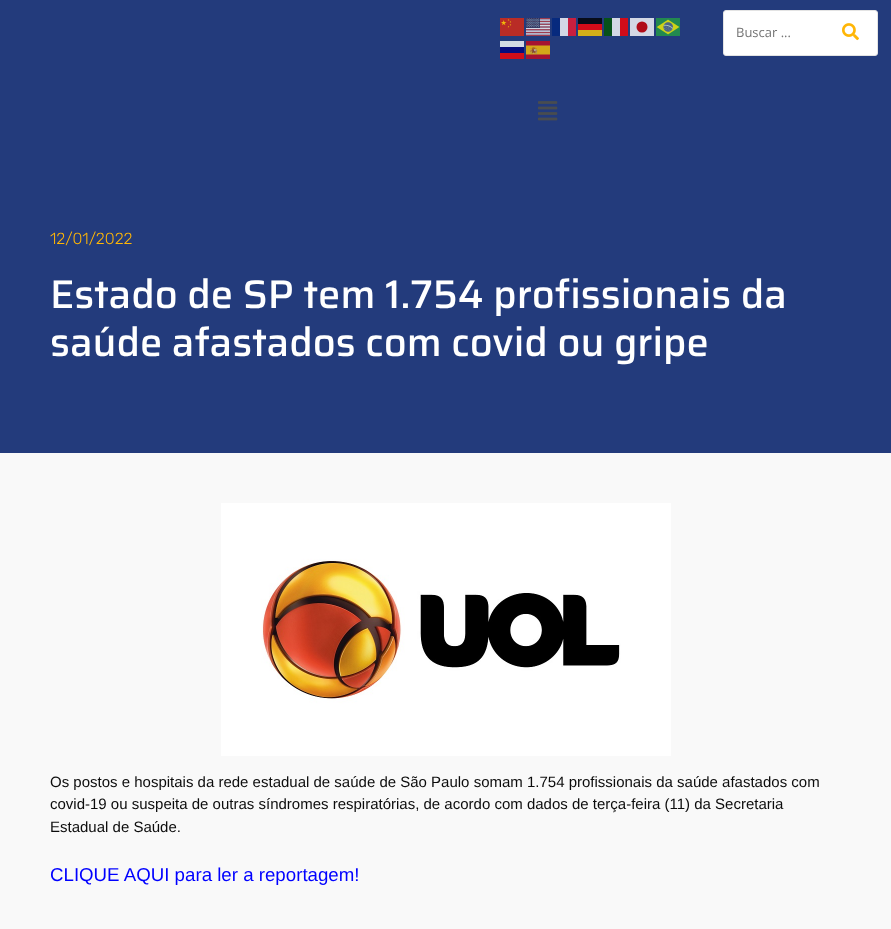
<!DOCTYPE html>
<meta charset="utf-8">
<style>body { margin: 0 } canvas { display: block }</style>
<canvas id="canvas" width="891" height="929"></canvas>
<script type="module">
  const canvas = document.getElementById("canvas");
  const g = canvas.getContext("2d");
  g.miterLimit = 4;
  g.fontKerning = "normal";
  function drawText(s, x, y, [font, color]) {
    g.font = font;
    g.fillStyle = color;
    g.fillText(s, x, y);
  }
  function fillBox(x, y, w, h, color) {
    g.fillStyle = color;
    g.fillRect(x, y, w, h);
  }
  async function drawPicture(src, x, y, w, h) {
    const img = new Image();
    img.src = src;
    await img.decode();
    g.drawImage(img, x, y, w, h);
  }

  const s1 = ["13px Open Sans", "#757575"];
  const s2 = ["300 16px Rubik", "#FFB606"];
  const s3 = ["500 40px Saira", "#FFFFFF"];
  const s4 = ["15px Liberation Sans", "#0C0C0C"];
  const s5 = ["18.7px Liberation Sans", "#0000FF"];

  fillBox(0, 0, 891, 929, "#F9F9F9");
  fillBox(0, 0, 891, 176, "#233B7C");
  await drawPicture("pic1.png", 500, 18, 24, 18);
  await drawPicture("pic2.png", 526, 18, 24, 18);
  fillBox(552, 18, 8, 18, "#072A7E");
  fillBox(560, 18, 8, 18, "#D3D8E5");
  fillBox(568, 18, 8, 18, "#C91F3F");
  fillBox(578, 18, 24, 6, "#070C19");
  fillBox(604, 18, 8, 18, "#075119");
  fillBox(612, 18, 8, 18, "#D3D8E5");
  fillBox(620, 18, 8, 18, "#D10C19");
  fillBox(630, 18, 24, 18, "#D3D8E5");
  await drawPicture("pic3.png", 656, 18, 24, 18);
  fillBox(578, 24, 24, 6, "#D30C19");
  g.fillStyle = "#B00C19";
  g.beginPath();
  g.arc(642, 27, 5.5, 0, Math.PI * 2);
  g.fill();
  fillBox(578, 30, 24, 6, "#D3AF19");
  fillBox(500, 41, 24, 6, "#D3D8E5");
  await drawPicture("pic4.png", 526, 41, 24, 18);
  fillBox(500, 47, 24, 6, "#080D7E");
  fillBox(500, 53, 24, 6, "#D20D1A");
  g.fillStyle = "#FFFFFF";
  g.beginPath();
  g.roundRect(723.5, 10.5, 154, 45, 2.5);
  g.fill();
  g.strokeStyle = "#E3E3E3";
  g.stroke();
  drawText("Buscar ...", 736, 37, s1);
  await drawPicture("pic5.png", 842, 23, 17, 18);
  await drawPicture("pic6.png", 538, 101, 20, 20);
  fillBox(0, 176, 891, 277, "#233B7C");
  drawText("12/01/2022", 50, 244, s2);
  drawText("Estado de SP tem 1.754 profissionais da", 50, 308, s3);
  drawText("saúde afastados com covid ou gripe", 50, 356, s3);
  await drawPicture("pic7.png", 221, 503, 450, 253);
  drawText("Os postos e hospitais da rede estadual de saúde de São Paulo somam 1.754 profissionais da saúde afastados com", 50, 787, s4);
  drawText("covid-19 ou suspeita de outras síndromes respiratórias, de acordo com dados de terça-feira (11) da Secretaria", 50, 809, s4);
  drawText("Estadual de Saúde.", 50, 832, s4);
  drawText("CLIQUE AQUI para ler a reportagem!", 50, 881, s5);
</script>
